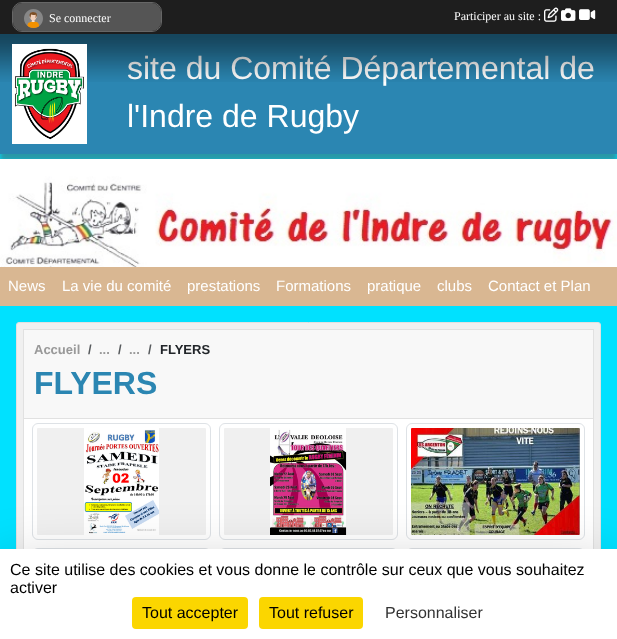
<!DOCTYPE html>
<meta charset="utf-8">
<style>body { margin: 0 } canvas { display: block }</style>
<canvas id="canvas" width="617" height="639"></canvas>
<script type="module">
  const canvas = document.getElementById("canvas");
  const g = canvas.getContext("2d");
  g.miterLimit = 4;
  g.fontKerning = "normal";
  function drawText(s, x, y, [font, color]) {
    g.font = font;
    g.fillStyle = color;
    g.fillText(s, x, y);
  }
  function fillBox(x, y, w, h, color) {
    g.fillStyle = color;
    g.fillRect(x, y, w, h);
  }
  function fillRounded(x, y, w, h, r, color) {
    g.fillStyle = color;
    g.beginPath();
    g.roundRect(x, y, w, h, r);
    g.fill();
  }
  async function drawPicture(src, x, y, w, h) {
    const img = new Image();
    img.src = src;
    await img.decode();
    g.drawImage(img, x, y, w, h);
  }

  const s1 = ["12px Liberation Serif", "#FFFFFF"];
  const s2 = ["32px Liberation Sans", "#FFFFFF"];
  const s3 = ["15px Liberation Sans", "#FFFFFF"];
  const s4 = ["bold 13px Liberation Sans", "#999999"];
  const s5 = ["bold 13px Liberation Sans", "#575A5D"];
  const s6 = ["bold 13px Liberation Sans", "#212529"];
  const s7 = ["bold 32px Liberation Sans", "#2B86B2"];
  const s8 = ["16px Liberation Sans", "#000000"];
  const s9 = ["16px Liberation Sans", "#333333"];

  fillBox(0, 0, 617, 639, "#00E1FF");
  g.fillStyle = "rgba(80, 80, 80, 0.5)";
  g.filter = "blur(2.5px)";
  g.beginPath();
  g.rect(0, 41, 617, 120);
  g.fill();
  g.filter = "none";
  fillBox(0, 0, 617, 34, "#1E1E1E");
  g.beginPath();
  g.roundRect(12.5, 2.5, 149, 29, 9.5);
  g.strokeStyle = "#666666";
  g.stroke();
  fillRounded(13, 3, 148, 28, 9, "#555555");
  await drawPicture("pic1.png", 24, 9, 19, 19);
  drawText("Se connecter", 49, 22, s1);
  drawText("Participer au site :", 454, 20, s1);
  await drawPicture("pic2.png", 544, 7, 15, 15);
  await drawPicture("pic3.png", 561, 8, 15, 13);
  await drawPicture("pic4.png", 579, 9, 17, 11);
  fillBox(0, 34, 617, 120, "#2B86B2");
  drawText("site du Comité Départemental de", 127, 79, s2);
  await drawPicture("pic5.png", 0, 34, 617, 48);
  await drawPicture("pic6.png", 12, 44, 75, 100);
  drawText("l'Indre de Rugby", 127, 127, s2);
  await drawPicture("pic7.png", 0, 159, 617, 108);
  fillBox(0, 267, 617, 39, "#D9B792");
  drawText("News", 8, 291, s3);
  drawText("La vie du comité", 62, 291, s3);
  drawText("prestations", 187, 291, s3);
  drawText("Formations", 276, 291, s3);
  drawText("pratique", 367, 291, s3);
  drawText("clubs", 437, 291, s3);
  drawText("Contact et Plan", 488, 291, s3);
  g.fillStyle = "#F0F0F0";
  g.beginPath();
  g.roundRect(16.5, 322.5, 584, 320, 2.5);
  g.fill();
  g.strokeStyle = "#E1E1E1";
  g.stroke();
  fillBox(24, 419, 569, 130, "#FFFFFF");
  g.strokeRect(23.5, 329.5, 570, 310);
  fillBox(24, 330, 569, 88, "#F8F8F8");
  fillBox(24, 418, 569, 1, "#E1E1E1");
  drawText("Accueil", 34, 354, s4);
  drawText("/", 88, 354, s5);
  drawText("...", 99, 354, s4);
  drawText("/", 118, 354, s5);
  drawText("...", 129, 354, s4);
  drawText("/", 148, 354, s5);
  drawText("FLYERS", 160, 354, s6);
  drawText("FLYERS", 34, 394, s7);
  g.beginPath();
  g.roundRect(32.5, 423.5, 178, 116, 5.5);
  g.strokeStyle = "#DEE2E6";
  g.stroke();
  await drawPicture("pic8.png", 37, 428, 169, 107);
  g.beginPath();
  g.roundRect(219.5, 423.5, 178, 116, 5.5);
  g.stroke();
  await drawPicture("pic9.png", 224, 428, 169, 107);
  g.beginPath();
  g.roundRect(406.5, 423.5, 178, 116, 5.5);
  g.stroke();
  await drawPicture("pic10.png", 411, 428, 169, 107);
  g.beginPath();
  g.roundRect(32.5, 548.5, 178, 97, 5.5);
  g.stroke();
  g.beginPath();
  g.roundRect(219.5, 548.5, 178, 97, 5.5);
  g.stroke();
  g.beginPath();
  g.roundRect(406.5, 548.5, 178, 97, 5.5);
  g.stroke();
  g.fillStyle = "rgba(0, 0, 0, 0.25)";
  g.filter = "blur(30px)";
  g.beginPath();
  g.rect(0, 569, 617, 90);
  g.fill();
  g.filter = "none";
  fillBox(0, 549, 617, 90, "#FFFFFF");
  drawText("Ce site utilise des cookies et vous donne le contrôle sur ceux que vous souhaitez", 10, 575, s8);
  drawText("activer", 10, 593, s8);
  fillRounded(132, 597, 116, 32, 4, "#FBD600");
  drawText("Tout accepter", 142, 618, s8);
  fillRounded(259, 597, 104, 32, 4, "#FBD600");
  drawText("Tout refuser", 269, 618, s8);
  drawText("Personnaliser", 385, 618, s9);
</script>
